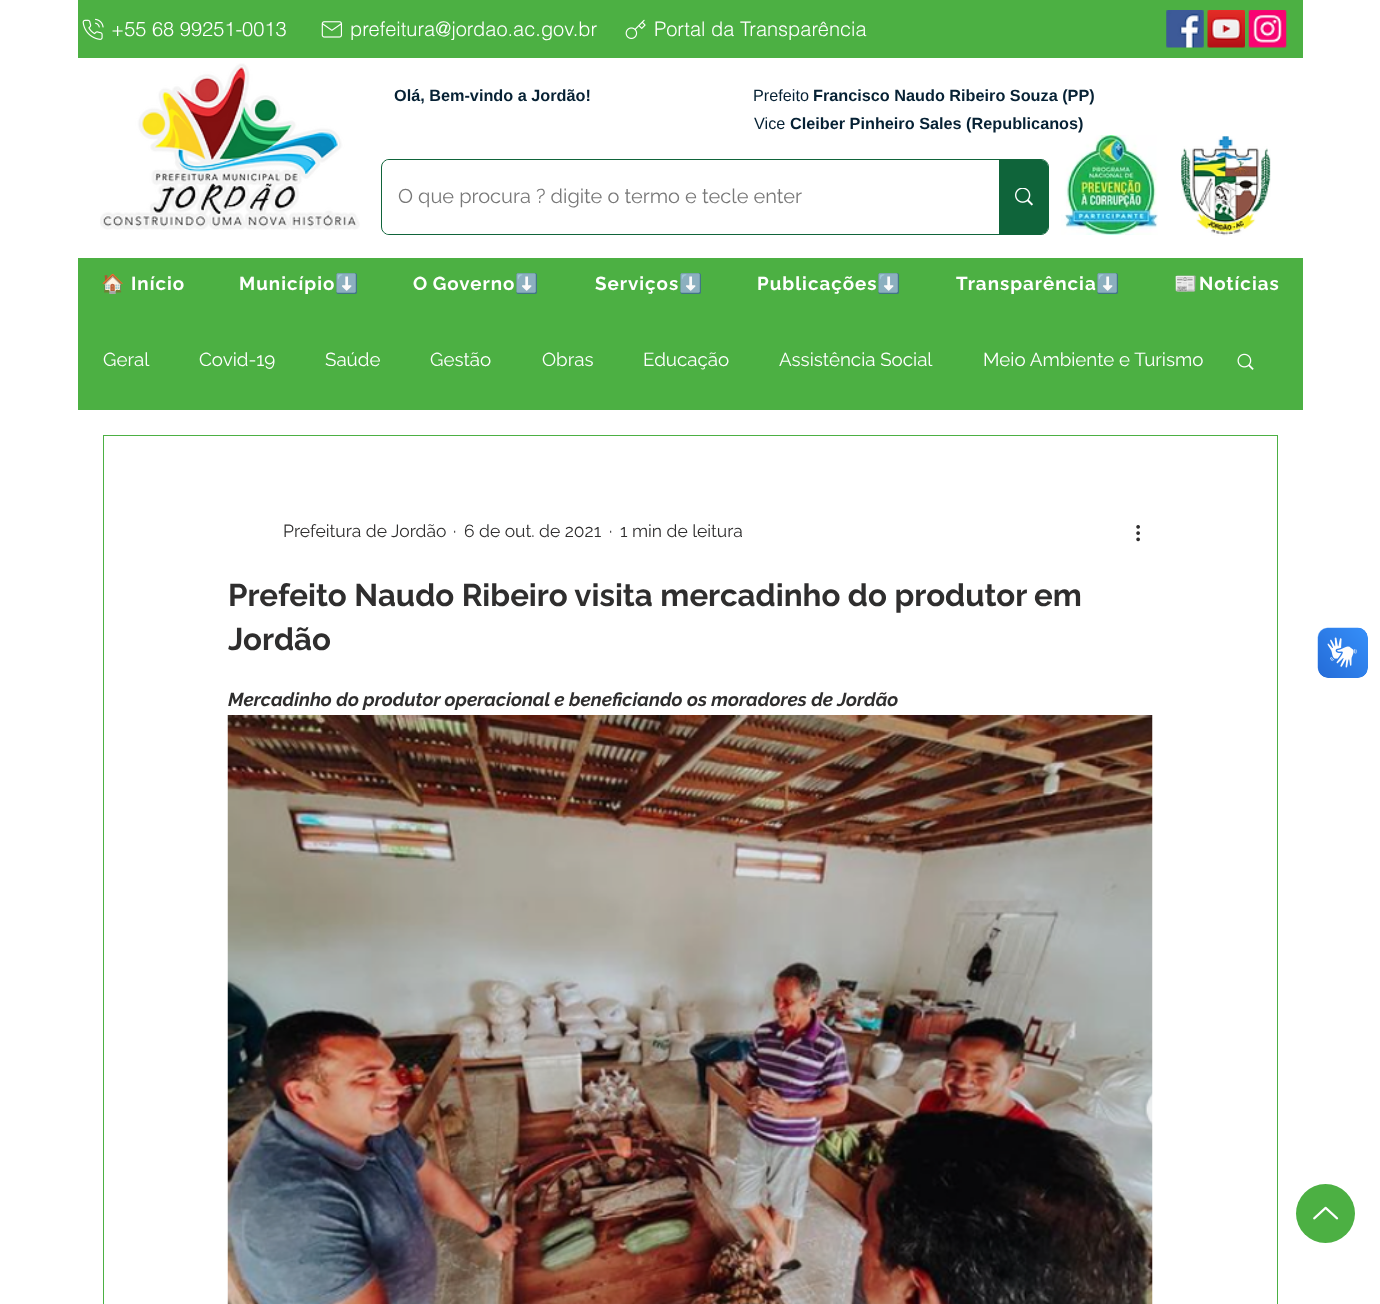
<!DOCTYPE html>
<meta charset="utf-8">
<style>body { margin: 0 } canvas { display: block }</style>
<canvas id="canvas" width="1380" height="1304"></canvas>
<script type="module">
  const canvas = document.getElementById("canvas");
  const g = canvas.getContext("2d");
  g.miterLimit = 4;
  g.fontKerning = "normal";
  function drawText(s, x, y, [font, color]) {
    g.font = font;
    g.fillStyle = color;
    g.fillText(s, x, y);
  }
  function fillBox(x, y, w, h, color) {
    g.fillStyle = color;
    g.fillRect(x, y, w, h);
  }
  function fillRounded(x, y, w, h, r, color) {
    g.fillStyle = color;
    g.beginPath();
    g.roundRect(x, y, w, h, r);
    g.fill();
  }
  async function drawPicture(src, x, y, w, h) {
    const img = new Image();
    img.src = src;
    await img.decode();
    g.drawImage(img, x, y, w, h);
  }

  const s1 = ["300 20px helvetica", "#FFFFFF"];
  const s2 = ["bold 16.25px Liberation Sans", "#062134"];
  const s3 = ["20px Raleway", "#787878"];
  const s4 = ["16.25px Liberation Sans", "#062134"];
  const s5 = ["bold 18.75px Noto Color Emoji", "#FFFFFF"];
  const s6 = ["bold 18.75px Raleway", "#FFFFFF"];
  const s7 = ["18.75px Raleway", "#FFFFFF"];
  const s8 = ["17.5px Raleway", "#2F2E2E"];
  const s9 = ["bold 31.25px Raleway", "#2F2E2E"];
  const s10 = ["italic bold 18.75px Raleway", "#2F2E2E"];

  fillBox(0, 0, 1380, 1304, "#FFFFFF");
  fillBox(78, 0, 1225, 58, "#4CB043");
  await drawPicture("pic1.png", 82, 18, 22, 22);
  drawText("+55 68 99251-0013", 111, 36, s1);
  await drawPicture("pic2.png", 321, 21, 21, 17);
  drawText("prefeitura@jordao.ac.gov.br", 350, 36, s1);
  await drawPicture("pic3.png", 625, 19, 21, 20);
  drawText("Portal da Transparência", 654, 36, s1);
  await drawPicture("pic4.png", 1166, 10, 38, 38);
  await drawPicture("pic5.png", 1207, 10, 38, 38);
  await drawPicture("pic6.png", 1248, 10, 39, 38);
  await drawPicture("pic7.png", 100, 63, 260, 167);
  drawText("Olá, Bem-vindo a Jordão!", 394, 101, s2);
  g.beginPath();
  g.roundRect(381.5, 159.5, 667, 75, 7.5);
  g.strokeStyle = "#0F643A";
  g.stroke();
  fillRounded(383, 160, 665, 74, 6, "#FFFFFF");
  drawText("O que procura ? digite o termo e tecle enter", 398, 203, s3);
  g.fillStyle = "#0F643A";
  g.beginPath();
  g.roundRect(999, 160, 49, 74, [0, 6, 6, 0]);
  g.fill();
  await drawPicture("pic8.png", 1015, 188, 18, 18);
  await drawPicture("pic9.png", 1061, 135, 97, 100);
  await drawPicture("pic10.png", 1181, 136, 90, 100);
  drawText("Prefeito", 753, 101, s4);
  drawText("Francisco Naudo Ribeiro Souza (PP)", 813, 101, s2);
  drawText("Vice", 754, 129, s4);
  drawText("Cleiber Pinheiro Sales (Republicanos)", 790, 129, s2);
  fillBox(78, 258, 1225, 152, "#4CB043");
  g.letterSpacing = "1px";
  drawText("🏠", 101, 290, s5);
  drawText("Início", 131, 290, s6);
  drawText("Município", 239, 290, s6);
  drawText("⬇️", 335, 290, s5);
  g.wordSpacing = "-1px";
  drawText("O Governo", 413, 290, s6);
  g.wordSpacing = "0px";
  drawText("⬇️", 515, 290, s5);
  drawText("Serviços", 595, 290, s6);
  drawText("⬇️", 679, 290, s5);
  drawText("Publicações", 757, 290, s6);
  drawText("⬇️", 877, 290, s5);
  drawText("Transparência", 956, 290, s6);
  drawText("⬇️", 1096, 290, s5);
  drawText("📰", 1174, 290, s5);
  drawText("Notícias", 1199, 290, s6);
  g.letterSpacing = "0px";
  drawText("Geral", 103, 366, s7);
  drawText("Covid-19", 199, 366, s7);
  drawText("Saúde", 325, 366, s7);
  drawText("Gestão", 430, 366, s7);
  drawText("Obras", 542, 366, s7);
  drawText("Educação", 643, 366, s7);
  drawText("Assistência Social", 779, 366, s7);
  drawText("Meio Ambiente e Turismo", 983, 366, s7);
  await drawPicture("pic11.png", 1237, 353, 17, 17);
  g.strokeStyle = "#4CB043";
  g.strokeRect(103.5, 435.5, 1174, 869);
  drawText("Prefeitura de Jordão", 283, 537, s8);
  drawText("·", 453, 537, s8);
  drawText("6 de out. de 2021", 464, 537, s8);
  drawText("·", 609, 537, s8);
  drawText("1 min de leitura", 620, 537, s8);
  await drawPicture("pic12.png", 1136, 525, 4, 17);
  drawText("Prefeito Naudo Ribeiro visita mercadinho do produtor em", 228, 606, s9);
  drawText("Jordão", 228, 650, s9);
  drawText("Mercadinho do produtor operacional e beneficiando os moradores de Jordão", 228, 706, s10);
  await drawPicture("pic13.png", 227, 715, 926, 589);
  g.fillStyle = "#4CB043";
  g.beginPath();
  g.arc(1325.5, 1213.5, 29.5, 0, Math.PI * 2);
  g.fill();
  await drawPicture("pic14.png", 1313, 1206, 26, 14);
  await drawPicture("pic15.png", 1317, 627, 51, 51);
  await drawPicture("pic16.png", 1318, 628, 50, 50);
</script>
